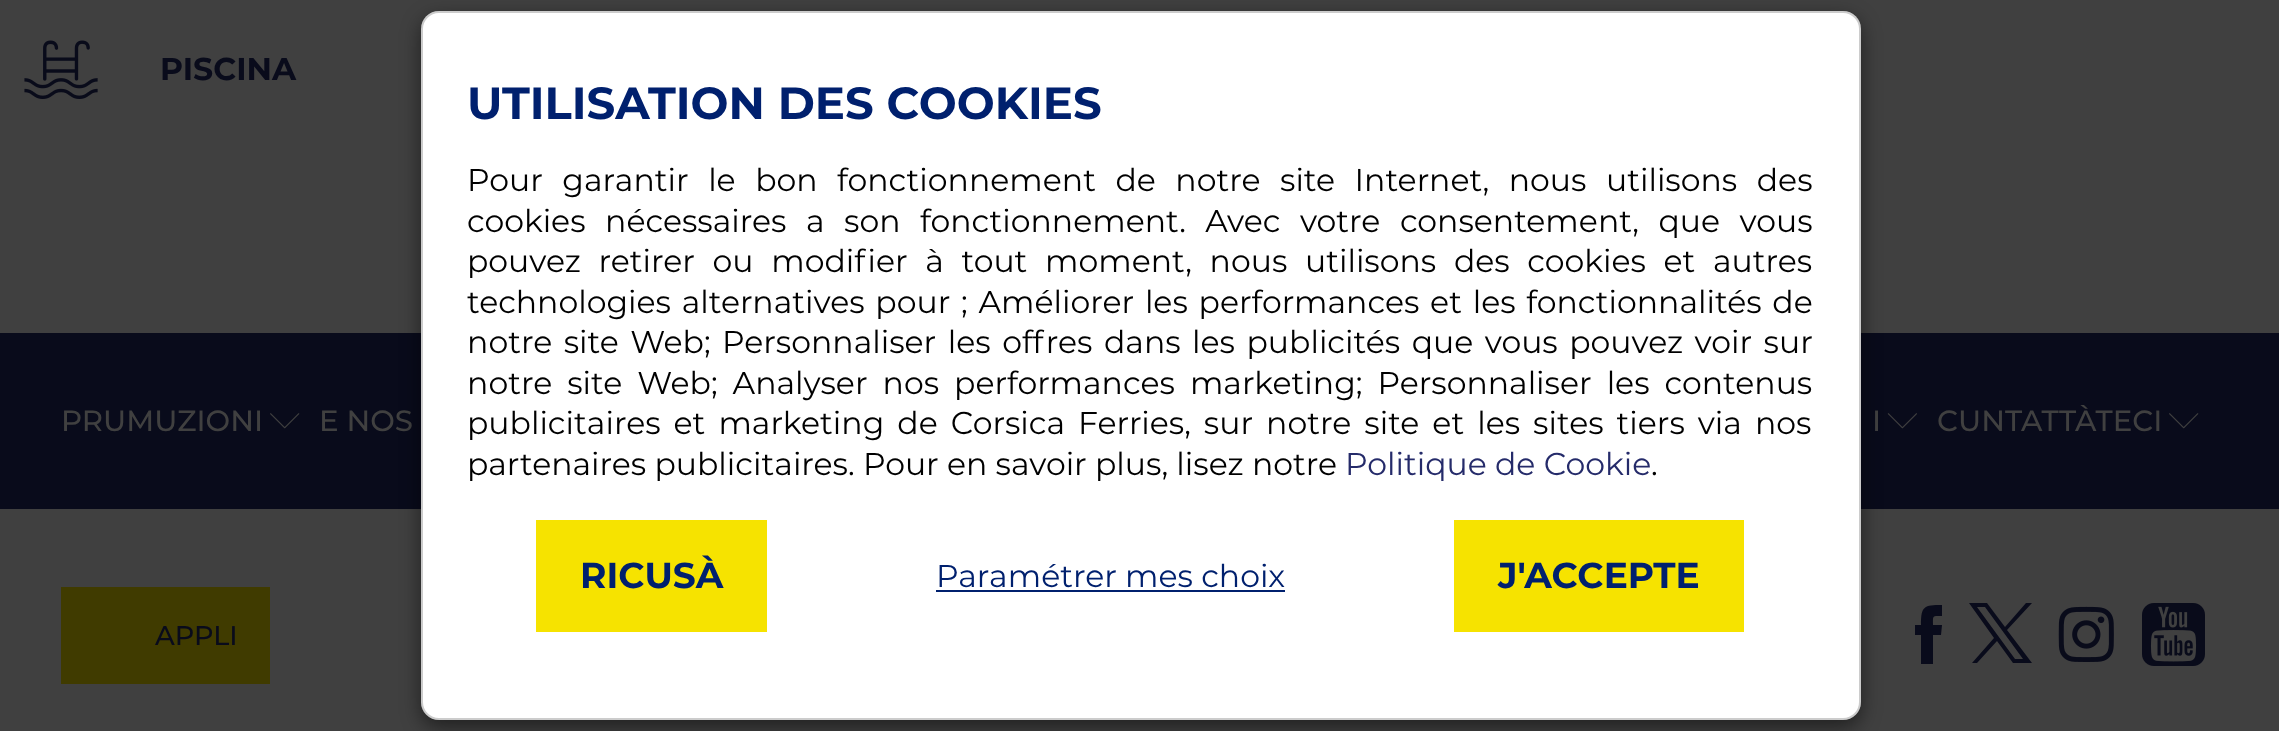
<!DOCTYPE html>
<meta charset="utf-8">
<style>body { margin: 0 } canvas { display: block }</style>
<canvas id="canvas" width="2279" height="731"></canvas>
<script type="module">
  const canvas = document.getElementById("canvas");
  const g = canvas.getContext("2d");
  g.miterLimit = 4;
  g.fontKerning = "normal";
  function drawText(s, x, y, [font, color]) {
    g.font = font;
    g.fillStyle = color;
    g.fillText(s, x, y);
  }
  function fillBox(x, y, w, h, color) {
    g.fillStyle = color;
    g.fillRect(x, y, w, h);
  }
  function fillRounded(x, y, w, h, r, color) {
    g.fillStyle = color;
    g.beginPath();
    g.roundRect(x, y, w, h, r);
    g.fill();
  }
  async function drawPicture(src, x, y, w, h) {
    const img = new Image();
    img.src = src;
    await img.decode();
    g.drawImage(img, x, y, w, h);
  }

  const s1 = ["bold 31.5px Montserrat", "#090B1B"];
  const s2 = ["500 29.25px Montserrat", "#404040"];
  const s3 = ["500 27px Montserrat", "#090B1B"];
  const s4 = ["bold 45px Montserrat", "#00206E"];
  const s5 = ["31.5px Montserrat", "#000000"];
  const s6 = ["31.5px Montserrat", "#252B6A"];
  const s7 = ["bold 36px Montserrat", "#00206E"];
  const s8 = ["31.5px Montserrat", "#00206E"];

  fillBox(0, 0, 2279, 731, "#404040");
  await drawPicture("pic1.png", 24, 40, 74, 59);
  drawText("PISCINA", 160, 80, s1);
  fillBox(0, 333, 2279, 176, "#090B1B");
  drawText("PRUMUZIONI", 61, 431, s2);
  await drawPicture("pic2.png", 270, 413, 30, 16);
  drawText("E NOS", 319, 431, s2);
  drawText("I", 1872, 431, s2);
  await drawPicture("pic3.png", 1887, 413, 30, 16);
  drawText("CUNTATTÀTECI", 1937, 431, s2);
  await drawPicture("pic2.png", 2169, 413, 30, 16);
  fillBox(61, 587, 209, 97, "#403B00");
  drawText("APPLI", 155, 645, s3);
  g.beginPath();
  g.moveTo(1933, 664);
  g.lineTo(1921, 664);
  g.lineTo(1921, 635);
  g.lineTo(1915, 635);
  g.lineTo(1915, 625);
  g.lineTo(1921, 625);
  g.bezierCurveTo(1921, 606, 1924, 605, 1942, 605);
  g.lineTo(1942, 616);
  g.bezierCurveTo(1932, 616, 1933, 615, 1933, 625);
  g.lineTo(1942, 625);
  g.lineTo(1941, 635);
  g.lineTo(1933, 635);
  g.closePath();
  g.fill();
  g.beginPath();
  g.moveTo(2032, 663);
  g.lineTo(2007, 630);
  g.lineTo(2032, 603);
  g.lineTo(2026, 603);
  g.lineTo(2005, 627);
  g.lineTo(1987, 603);
  g.lineTo(1969, 603);
  g.lineTo(1994, 638);
  g.lineTo(1972, 663);
  g.lineTo(1977, 663);
  g.lineTo(1997, 641);
  g.lineTo(2013, 663);
  g.closePath();
  g.moveTo(2023, 659);
  g.lineTo(2015, 659);
  g.lineTo(1977, 607);
  g.lineTo(1985, 607);
  g.closePath();
  g.fill();
  await drawPicture("pic4.png", 2058, 606, 56, 56);
  await drawPicture("pic5.png", 2142, 603, 63, 63);
  g.fillStyle = "rgba(0, 0, 0, 0.5)";
  g.filter = "blur(10px)";
  g.beginPath();
  g.roundRect(421, 18, 1440, 709, 18);
  g.fill();
  g.filter = "none";
  fillRounded(421, 11, 1440, 709, 18, "#FFFFFF");
  g.beginPath();
  g.roundRect(422, 12, 1438, 707, 17);
  g.strokeStyle = "rgba(0, 0, 0, 0.2)";
  g.lineWidth = 2;
  g.stroke();
  drawText("UTILISATION DES COOKIES", 467, 119, s4);
  g.wordSpacing = "11.25px";
  drawText("Pour garantir le bon fonctionnement de notre site Internet, nous utilisons des", 467, 191, s5);
  drawText("cookies nécessaires a son fonctionnement. Avec votre consentement, que vous", 467, 232, s5);
  g.wordSpacing = "9.4px";
  drawText("pouvez retirer ou modifier à tout moment, nous utilisons des cookies et autres", 467, 272, s5);
  g.wordSpacing = "2.5px";
  drawText("technologies alternatives pour ; Améliorer les performances et les fonctionnalités de", 467, 313, s5);
  g.wordSpacing = "3.25px";
  drawText("notre site Web; Personnaliser les offres dans les publicités que vous pouvez voir sur", 467, 353, s5);
  g.wordSpacing = "6.75px";
  drawText("notre site Web; Analyser nos performances marketing; Personnaliser les contenus", 467, 394, s5);
  g.wordSpacing = "4.75px";
  drawText("publicitaires et marketing de Corsica Ferries, sur notre site et les sites tiers via nos", 467, 434, s5);
  g.wordSpacing = "0px";
  drawText("partenaires publicitaires. Pour en savoir plus, lisez notre", 467, 475, s5);
  drawText("Politique de Cookie", 1345, 475, s6);
  drawText(".", 1651, 475, s5);
  fillBox(536, 520, 231, 112, "#F6E300");
  drawText("RICUSÀ", 580, 588, s7);
  drawText("Paramétrer mes choix", 936, 587, s8);
  fillBox(936, 590, 349, 2, "#00206E");
  fillBox(1454, 520, 290, 112, "#F6E300");
  drawText("J'ACCEPTE", 1498, 588, s7);
</script>
